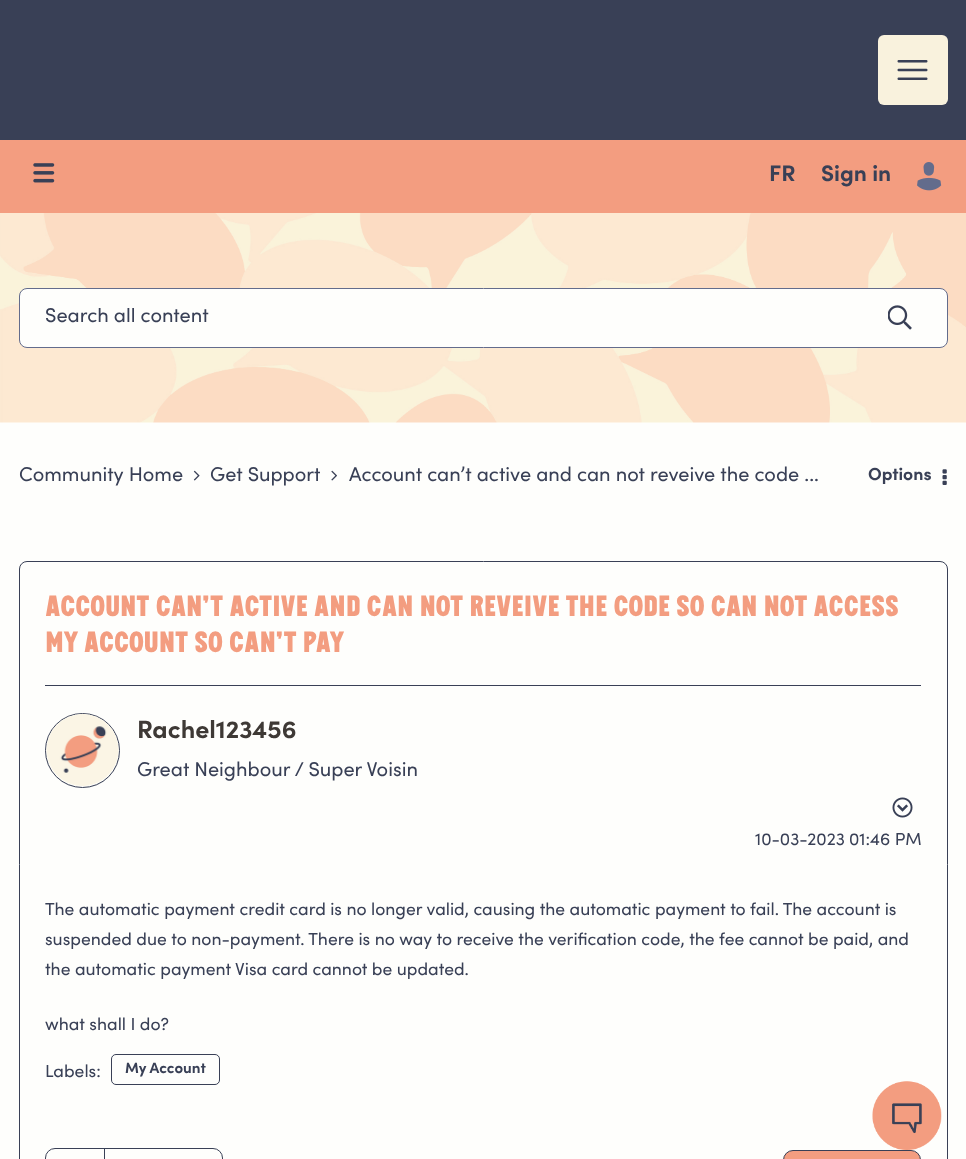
<!DOCTYPE html>
<meta charset="utf-8">
<style>body { margin: 0 } canvas { display: block }</style>
<canvas id="canvas" width="966" height="1159"></canvas>
<script type="module">
  const canvas = document.getElementById("canvas");
  const g = canvas.getContext("2d");
  g.miterLimit = 4;
  g.fontKerning = "normal";
  function drawText(s, x, y, [font, color]) {
    g.font = font;
    g.fillStyle = color;
    g.fillText(s, x, y);
  }
  function fillBox(x, y, w, h, color) {
    g.fillStyle = color;
    g.fillRect(x, y, w, h);
  }
  function fillRounded(x, y, w, h, r, color) {
    g.fillStyle = color;
    g.beginPath();
    g.roundRect(x, y, w, h, r);
    g.fill();
  }
  async function drawPicture(src, x, y, w, h) {
    const img = new Image();
    img.src = src;
    await img.decode();
    g.drawImage(img, x, y, w, h);
  }

  const s1 = ["bold 22.5px Sofia", "#394056"];
  const s2 = ["20px Sofia", "#394056"];
  const s3 = ["bold 17.5px Sofia", "#394056"];
  const s4 = ["bold 30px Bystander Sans", "#F39D80"];
  const s5 = ["bold 25px Sofia", "#3E3935"];
  const s6 = ["17.5px Sofia", "#394056"];
  const s7 = ["bold 15px Sofia", "#394056"];

  fillBox(0, 0, 966, 1159, "#FEFEFC");
  fillBox(0, 0, 966, 140, "#394056");
  fillRounded(878, 35, 70, 70, 6, "#F9F2DD");
  await drawPicture("pic1.png", 897, 60, 31, 20);
  fillBox(0, 140, 966, 73, "#F39D80");
  await drawPicture("pic2.png", 33, 163, 22, 20);
  drawText("FR", 769, 181, s1);
  drawText("Sign in", 821, 181, s1);
  await drawPicture("pic3.png", 917, 162, 25, 29);
  await drawPicture("pic4.png", 0, 213, 966, 210);
  g.fillStyle = "#FEFEFC";
  g.beginPath();
  g.roundRect(19.5, 288.5, 928, 59, 7.5);
  g.fill();
  g.strokeStyle = "#636C8C";
  g.stroke();
  g.save();
  g.beginPath();
  g.rect(45, 308, 826, 21);
  g.clip();
  drawText("Search all content", 45, 322, s2);
  g.restore();
  await drawPicture("pic5.png", 888, 305, 24, 25);
  drawText("Community Home", 19, 481, s2);
  await drawPicture("pic6.png", 193, 470, 7, 11);
  drawText("Get Support", 210, 481, s2);
  await drawPicture("pic7.png", 331, 470, 6, 11);
  drawText("Account can’t active and can not reveive the code ...", 349, 481, s2);
  drawText("Options", 868, 480, s3);
  await drawPicture("pic8.png", 942, 469, 5, 16);
  g.beginPath();
  g.roundRect(19.5, 561.5, 928, 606, 7.5);
  g.strokeStyle = "#394056";
  g.stroke();
  fillBox(45, 685, 876, 1, "#394056");
  drawText("Account can’t active and can not reveive the code so can not access", 45, 616, s4);
  drawText("my account so can’t pay", 45, 652, s4);
  g.save();
  g.beginPath();
  g.moveTo(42, 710);
  g.lineTo(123, 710);
  g.lineTo(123, 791);
  g.lineTo(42, 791);
  g.closePath();
  g.moveTo(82.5, 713);
  g.bezierCurveTo(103, 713, 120, 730, 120, 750.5);
  g.bezierCurveTo(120, 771, 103, 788, 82.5, 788);
  g.bezierCurveTo(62, 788, 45, 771, 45, 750.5);
  g.bezierCurveTo(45, 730, 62, 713, 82.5, 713);
  g.closePath();
  g.clip("evenodd");
  g.fillStyle = "#C4C4C4";
  g.filter = "blur(0.5px)";
  g.beginPath();
  g.roundRect(45, 713, 75, 75, 37.5);
  g.fill();
  g.filter = "none";
  g.restore();
  g.beginPath();
  g.arc(82.5, 750.5, 37, 0, Math.PI * 2);
  g.stroke();
  await drawPicture("pic9.png", 46, 713, 73, 73);
  drawText("Rachel123456", 137, 738, s5);
  drawText("Great Neighbour / Super Voisin", 137, 776, s2);
  await drawPicture("pic10.png", 892, 797, 21, 21);
  drawText("10-03-2023", 755, 845, s6);
  drawText("01:46 PM", 849, 845, s6);
  drawText("The automatic payment credit card is no longer valid, causing the automatic payment to fail. The account is", 45, 915, s6);
  drawText("suspended due to non-payment. There is no way to receive the verification code, the fee cannot be paid, and", 45, 945, s6);
  drawText("the automatic payment Visa card cannot be updated.", 45, 975, s6);
  drawText("what shall I do?", 45, 1030, s6);
  drawText("Labels:", 45, 1077, s6);
  g.beginPath();
  g.roundRect(111.5, 1054.5, 108, 30, 4.5);
  g.stroke();
  drawText("My Account", 125, 1073, s7);
  g.beginPath();
  g.roundRect(45.5, 1148.5, 177, 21, 9.5);
  g.stroke();
  fillBox(104, 1149, 1, 10, "#394056");
  g.fillStyle = "#F39D80";
  g.beginPath();
  g.roundRect(783.5, 1150.5, 137, 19, 9.5);
  g.fill();
  g.stroke();
  await drawPicture("pic11.png", 872, 1081, 70, 69);
</script>
